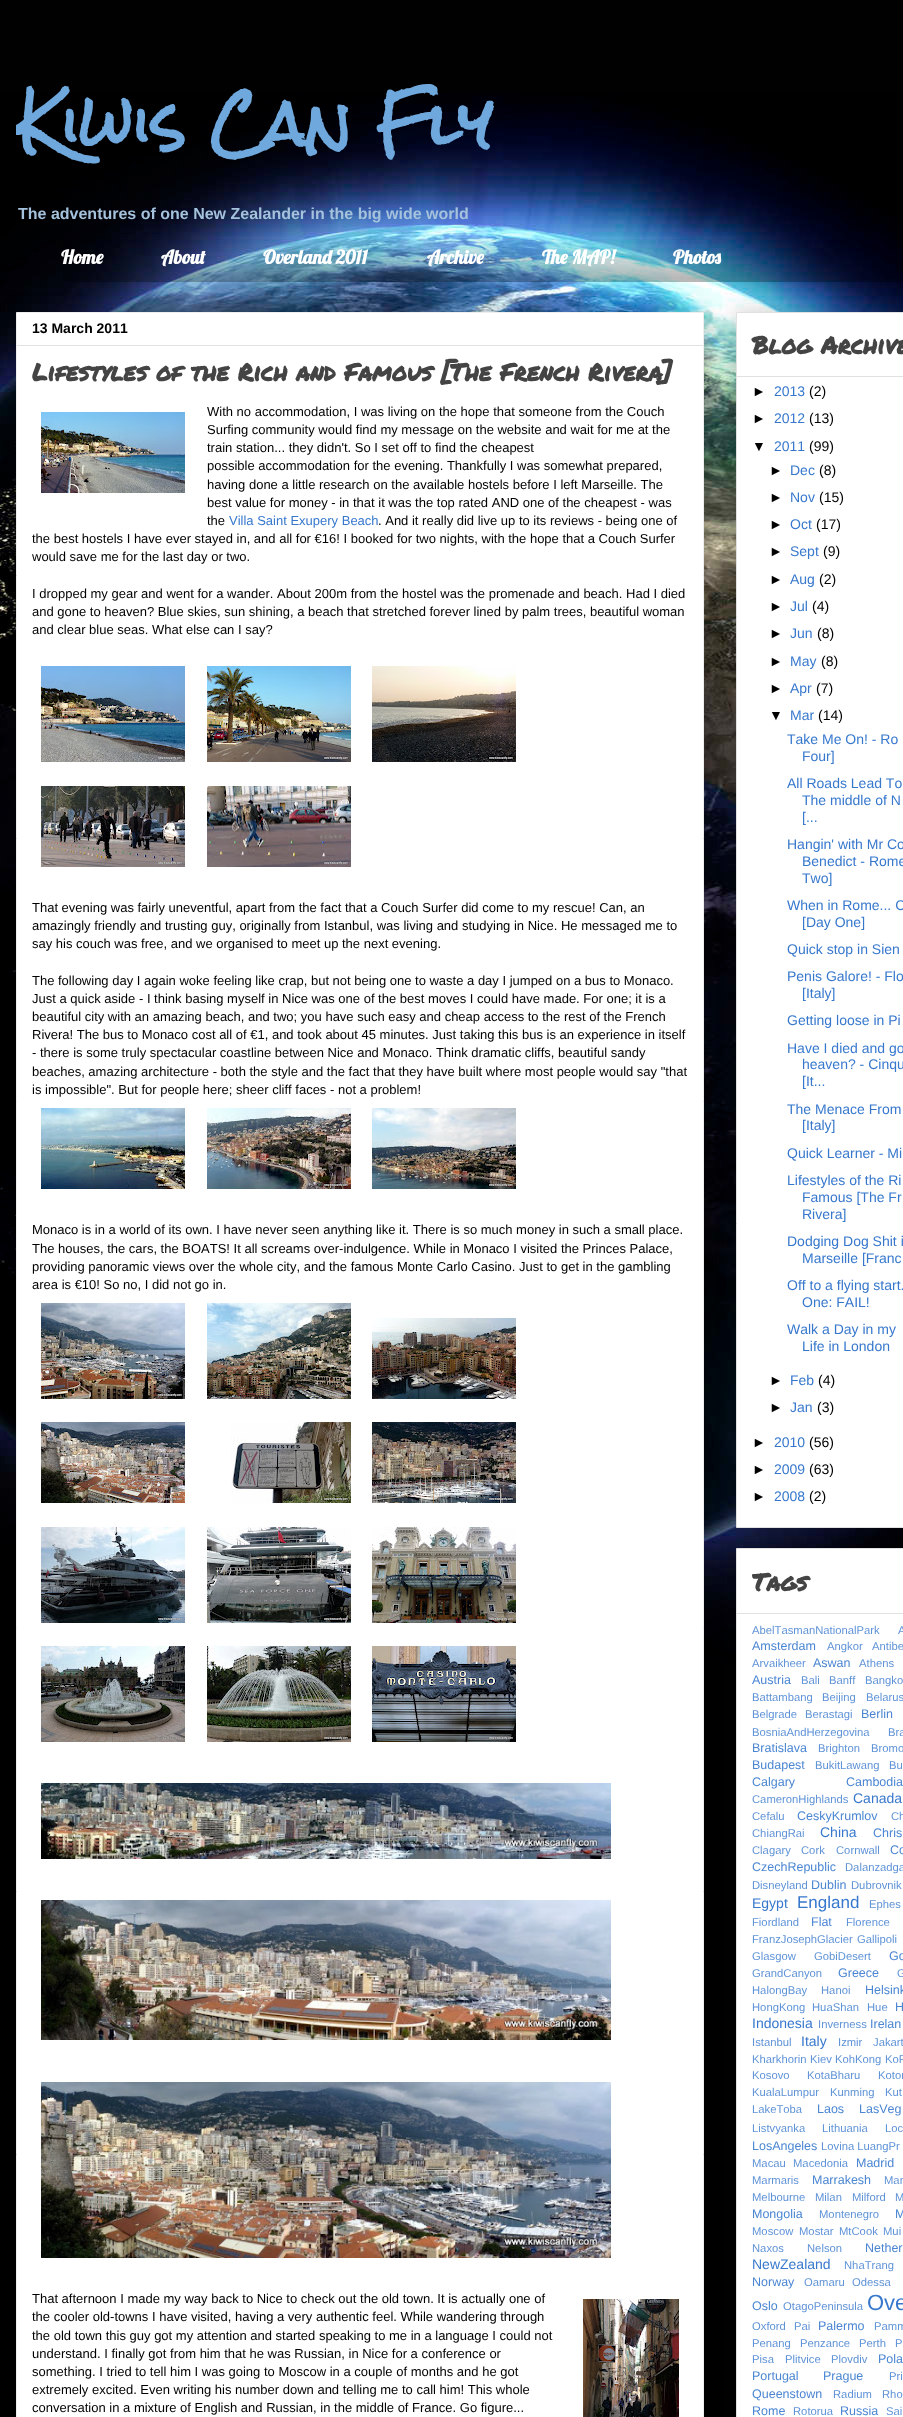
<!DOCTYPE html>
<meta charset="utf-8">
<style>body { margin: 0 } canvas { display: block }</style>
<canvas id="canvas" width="903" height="2417"></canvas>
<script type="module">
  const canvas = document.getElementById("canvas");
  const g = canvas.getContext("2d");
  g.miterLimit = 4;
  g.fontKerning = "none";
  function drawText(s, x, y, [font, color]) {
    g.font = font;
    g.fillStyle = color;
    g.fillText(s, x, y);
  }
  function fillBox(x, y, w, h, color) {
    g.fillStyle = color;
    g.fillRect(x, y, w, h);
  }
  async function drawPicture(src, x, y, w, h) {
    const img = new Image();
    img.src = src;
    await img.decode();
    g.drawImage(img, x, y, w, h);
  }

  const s1 = ["bold 60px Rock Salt", "#6FA8DC"];
  const s2 = ["bold 16px Liberation Sans", "#A5C2DC"];
  const s3 = ["bold 19px Lobster", "#FFFFFF"];
  const s4 = ["bold 14px Liberation Sans", "#000000"];
  const s5 = ["bold 24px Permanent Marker", "#444444"];
  const s6 = ["13px Liberation Sans", "#000000"];
  const s7 = ["13px Liberation Sans", "#3778CD"];
  const s8 = ["14px Liberation Sans", "#000000"];
  const s9 = ["14px Liberation Sans", "#3778CD"];
  const s10 = ["11.25px Liberation Sans", "#5F93D7"];
  const s11 = ["12.5px Liberation Sans", "#4B86D2"];
  const s12 = ["17px Liberation Sans", "#3778CD"];
  const s13 = ["22px Liberation Sans", "#3778CD"];

  fillBox(0, 0, 903, 2417, "#010101");
  await drawPicture("pic1.png", 0, 93, 903, 1571);
  g.save();
  g.beginPath();
  g.rect(16, 30, 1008, 203);
  g.clip();
  drawText("Kiwis Can Fly", 16, 148, s1);
  g.restore();
  drawText("The adventures of one New Zealander in the big wide world", 18, 219, s2);
  await drawPicture("pic2.png", 63, 239, 840, 43);
  drawText("Home", 61, 264, s3);
  drawText("About", 161, 264, s3);
  drawText("Overland 2011", 263, 264, s3);
  drawText("Archive", 427, 264, s3);
  drawText("The MAP!", 542, 264, s3);
  drawText("Photos", 673, 264, s3);
  g.fillStyle = "rgba(0, 0, 0, 0.2)";
  g.filter = "blur(10px)";
  g.beginPath();
  g.rect(16, 312, 688, 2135);
  g.fill();
  g.filter = "none";
  g.fillStyle = "#FFFFFF";
  g.beginPath();
  g.rect(16.5, 312.5, 687, 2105);
  g.fill();
  g.strokeStyle = "#EEEEEE";
  g.stroke();
  drawText("13 March 2011", 32, 333, s4);
  fillBox(17, 345, 686, 1, "#E1E1E1");
  drawText("Lifestyles of the Rich and Famous [The French Rivera]", 32, 381, s5);
  await drawPicture("pic3.png", 41, 412, 144, 81);
  drawText("With no accommodation, I was living on the hope that someone from the Couch", 207, 416, s6);
  drawText("Surfing community would find my message on the website and wait for me at the", 207, 434, s6);
  drawText("train station... they didn't. So I set off to find the cheapest", 207, 452, s6);
  drawText("possible accommodation for the evening. Thankfully I was somewhat prepared,", 207, 470, s6);
  drawText("having done a little research on the available hostels before I left Marseille. The", 207, 489, s6);
  drawText("best value for money - in that it was the top rated AND one of the cheapest - was", 207, 507, s6);
  drawText("the", 207, 525, s6);
  drawText("Villa Saint Exupery Beach", 229, 525, s7);
  drawText(". And it really did live up to its reviews - being one of", 378, 525, s6);
  drawText("the best hostels I have ever stayed in, and all for €16! I booked for two nights, with the hope that a Couch Surfer", 32, 543, s6);
  drawText("would save me for the last day or two.", 32, 561, s6);
  drawText("I dropped my gear and went for a wander. About 200m from the hostel was the promenade and beach. Had I died", 32, 598, s6);
  drawText("and gone to heaven? Blue skies, sun shining, a beach that stretched forever lined by palm trees, beautiful woman", 32, 616, s6);
  drawText("and clear blue seas. What else can I say?", 32, 634, s6);
  await drawPicture("pic4.png", 41, 666, 144, 96);
  await drawPicture("pic5.png", 207, 666, 144, 96);
  await drawPicture("pic6.png", 372, 666, 144, 96);
  await drawPicture("pic7.png", 41, 786, 144, 81);
  await drawPicture("pic8.png", 207, 786, 144, 81);
  drawText("That evening was fairly uneventful, apart from the fact that a Couch Surfer did come to my rescue! Can, an", 32, 912, s6);
  drawText("amazingly friendly and trusting guy, originally from Istanbul, was living and studying in Nice. He messaged me to", 32, 930, s6);
  drawText("say his couch was free, and we organised to meet up the next evening.", 32, 948, s6);
  drawText("The following day I again woke feeling like crap, but not being one to waste a day I jumped on a bus to Monaco.", 32, 985, s6);
  drawText("Just a quick aside - I think basing myself in Nice was one of the best moves I could have made. For one; it is a", 32, 1003, s6);
  drawText("beautiful city with an amazing beach, and two; you have such easy and cheap access to the rest of the French", 32, 1021, s6);
  drawText("Rivera! The bus to Monaco cost all of €1, and took about 45 minutes. Just taking this bus is an experience in itself", 32, 1039, s6);
  drawText("- there is some truly spectacular coastline between Nice and Monaco. Think dramatic cliffs, beautiful sandy", 32, 1057, s6);
  drawText("beaches, amazing architecture - both the style and the fact that they have built where most people would say \"that", 32, 1076, s6);
  drawText("is impossible\". But for people here; sheer cliff faces - not a problem!", 32, 1094, s6);
  await drawPicture("pic9.png", 41, 1108, 144, 81);
  await drawPicture("pic10.png", 207, 1108, 144, 81);
  await drawPicture("pic11.png", 372, 1108, 144, 81);
  drawText("Monaco is in a world of its own. I have never seen anything like it. There is so much money in such a small place.", 32, 1234, s6);
  drawText("The houses, the cars, the BOATS! It all screams over-indulgence. While in Monaco I visited the Princes Palace,", 32, 1253, s6);
  drawText("providing panoramic views over the whole city, and the famous Monte Carlo Casino. Just to get in the gambling", 32, 1271, s6);
  drawText("area is €10! So no, I did not go in.", 32, 1289, s6);
  await drawPicture("pic12.png", 41, 1303, 144, 96);
  await drawPicture("pic13.png", 207, 1303, 144, 96);
  await drawPicture("pic14.png", 372, 1318, 144, 81);
  await drawPicture("pic15.png", 41, 1422, 144, 81);
  await drawPicture("pic16.png", 231, 1422, 120, 81);
  await drawPicture("pic17.png", 372, 1422, 144, 81);
  await drawPicture("pic18.png", 41, 1527, 144, 96);
  await drawPicture("pic19.png", 207, 1527, 144, 96);
  await drawPicture("pic20.png", 372, 1527, 144, 96);
  await drawPicture("pic21.png", 41, 1646, 144, 96);
  await drawPicture("pic22.png", 207, 1646, 144, 96);
  await drawPicture("pic23.png", 372, 1646, 144, 96);
  await drawPicture("pic24.png", 41, 1783, 570, 76);
  await drawPicture("pic25.png", 41, 1900, 570, 140);
  await drawPicture("pic26.png", 41, 2082, 570, 176);
  drawText("That afternoon I made my way back to Nice to check out the old town. It is actually one of", 32, 2303, s6);
  await drawPicture("pic27.png", 583, 2299, 96, 118);
  drawText("the cooler old-towns I have visited, having a very authentic feel. While wandering through", 32, 2321, s6);
  drawText("the old town this guy got my attention and started speaking to me in a language I could not", 32, 2340, s6);
  drawText("understand. I finally got from him that he was Russian, in Nice for a conference or", 32, 2358, s6);
  drawText("something. I tried to tell him I was going to Moscow in a couple of months and he got", 32, 2376, s6);
  drawText("extremely excited. Even writing his number down and telling me to call him! This whole", 32, 2394, s6);
  drawText("conversation in a mixture of English and Russian, in the middle of France. Go figure...", 32, 2412, s6);
  g.fillStyle = "rgba(0, 0, 0, 0.2)";
  g.filter = "blur(10px)";
  g.beginPath();
  g.rect(736, 312, 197, 1216);
  g.fill();
  g.filter = "none";
  g.fillStyle = "#FFFFFF";
  g.beginPath();
  g.rect(736.5, 312.5, 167, 1215);
  g.fill();
  g.strokeStyle = "#E1E1E1";
  g.stroke();
  drawText("Blog Archive", 752, 354, s5);
  fillBox(737, 376, 166, 1, "#E1E1E1");
  drawText("►", 752, 396, s8);
  drawText("2013", 774, 396, s9);
  drawText("(2)", 809, 396, s8);
  drawText("►", 752, 423, s8);
  drawText("2012", 774, 423, s9);
  drawText("(13)", 809, 423, s8);
  drawText("▼", 752, 451, s8);
  drawText("2011", 774, 451, s9);
  drawText("(99)", 809, 451, s8);
  drawText("►", 769, 475, s8);
  drawText("Dec", 790, 475, s9);
  drawText("(8)", 819, 475, s8);
  drawText("►", 769, 502, s8);
  drawText("Nov", 790, 502, s9);
  drawText("(15)", 819, 502, s8);
  drawText("►", 769, 529, s8);
  drawText("Oct", 790, 529, s9);
  drawText("(17)", 816, 529, s8);
  drawText("►", 769, 556, s8);
  drawText("Sept", 790, 556, s9);
  drawText("(9)", 823, 556, s8);
  drawText("►", 769, 584, s8);
  drawText("Aug", 790, 584, s9);
  drawText("(2)", 819, 584, s8);
  drawText("►", 769, 611, s8);
  drawText("Jul", 790, 611, s9);
  drawText("(4)", 812, 611, s8);
  drawText("►", 769, 638, s8);
  drawText("Jun", 790, 638, s9);
  drawText("(8)", 817, 638, s8);
  drawText("►", 769, 666, s8);
  drawText("May", 790, 666, s9);
  drawText("(8)", 821, 666, s8);
  drawText("►", 769, 693, s8);
  drawText("Apr", 790, 693, s9);
  drawText("(7)", 816, 693, s8);
  drawText("▼", 769, 720, s8);
  drawText("Mar", 790, 720, s9);
  drawText("(14)", 818, 720, s8);
  drawText("Take Me On! - Ro", 787, 744, s9);
  drawText("Four]", 802, 761, s9);
  drawText("All Roads Lead To", 787, 788, s9);
  drawText("The middle of N", 802, 805, s9);
  drawText("[...", 802, 822, s9);
  drawText("Hangin' with Mr Co", 787, 849, s9);
  drawText("Benedict - Rome", 802, 866, s9);
  drawText("Two]", 802, 883, s9);
  drawText("When in Rome... C", 787, 910, s9);
  drawText("[Day One]", 802, 927, s9);
  drawText("Quick stop in Sien", 787, 954, s9);
  drawText("Penis Galore! - Flo", 787, 981, s9);
  drawText("[Italy]", 802, 998, s9);
  drawText("Getting loose in Pi", 787, 1025, s9);
  drawText("Have I died and go", 787, 1053, s9);
  drawText("heaven? - Cinqu", 802, 1069, s9);
  drawText("[It...", 802, 1086, s9);
  drawText("The Menace From", 787, 1114, s9);
  drawText("[Italy]", 802, 1130, s9);
  drawText("Quick Learner - Mi", 787, 1158, s9);
  drawText("Lifestyles of the Ri", 787, 1185, s9);
  drawText("Famous [The Fr", 802, 1202, s9);
  drawText("Rivera]", 802, 1219, s9);
  drawText("Dodging Dog Shit i", 787, 1246, s9);
  drawText("Marseille [Franc", 802, 1263, s9);
  drawText("Off to a flying start.", 787, 1290, s9);
  drawText("One: FAIL!", 802, 1307, s9);
  drawText("Walk a Day in my", 787, 1334, s9);
  drawText("Life in London", 802, 1351, s9);
  drawText("►", 769, 1385, s8);
  drawText("Feb", 790, 1385, s9);
  drawText("(4)", 818, 1385, s8);
  drawText("►", 769, 1412, s8);
  drawText("Jan", 790, 1412, s9);
  drawText("(3)", 817, 1412, s8);
  drawText("►", 752, 1447, s8);
  drawText("2010", 774, 1447, s9);
  drawText("(56)", 809, 1447, s8);
  drawText("►", 752, 1474, s8);
  drawText("2009", 774, 1474, s9);
  drawText("(63)", 809, 1474, s8);
  drawText("►", 752, 1501, s8);
  drawText("2008", 774, 1501, s9);
  drawText("(2)", 809, 1501, s8);
  g.fillStyle = "#FFFFFF";
  g.beginPath();
  g.rect(736.5, 1548.5, 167, 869);
  g.fill();
  g.stroke();
  drawText("Tags", 752, 1591, s5);
  fillBox(737, 1613, 166, 1, "#E1E1E1");
  drawText("AbelTasmanNationalPark", 752, 1634, s10);
  drawText("A", 898, 1634, s10);
  drawText("Amsterdam", 752, 1650, s11);
  drawText("Angkor", 827, 1650, s10);
  drawText("Antibe", 872, 1650, s10);
  drawText("Arvaikheer", 752, 1667, s10);
  drawText("Aswan", 813, 1667, s11);
  drawText("Athens", 859, 1667, s10);
  drawText("Austria", 752, 1684, s11);
  drawText("Bali", 801, 1684, s10);
  drawText("Banff", 829, 1684, s10);
  drawText("Bangko", 865, 1684, s10);
  drawText("Battambang", 752, 1701, s10);
  drawText("Beijing", 822, 1701, s10);
  drawText("Belarus", 866, 1701, s10);
  drawText("Belgrade", 752, 1718, s10);
  drawText("Berastagi", 805, 1718, s10);
  drawText("Berlin", 861, 1718, s11);
  drawText("BosniaAndHerzegovina", 752, 1736, s10);
  drawText("Bra", 888, 1736, s10);
  drawText("Bratislava", 752, 1752, s11);
  drawText("Brighton", 818, 1752, s10);
  drawText("Bromo", 871, 1752, s10);
  drawText("Budapest", 752, 1769, s11);
  drawText("BukitLawang", 815, 1769, s10);
  drawText("Bu", 889, 1769, s10);
  drawText("Calgary", 752, 1786, s11);
  drawText("Cambodia", 846, 1786, s11);
  drawText("CameronHighlands", 752, 1803, s10);
  drawText("Canada", 853, 1803, s9);
  drawText("Cefalu", 752, 1820, s10);
  drawText("CeskyKrumlov", 797, 1820, s11);
  drawText("Ch", 891, 1820, s10);
  drawText("ChiangRai", 752, 1837, s10);
  drawText("China", 820, 1837, s9);
  drawText("Chris", 873, 1837, s11);
  drawText("Clagary", 752, 1854, s10);
  drawText("Cork", 801, 1854, s10);
  drawText("Cornwall", 836, 1854, s10);
  drawText("Co", 890, 1854, s11);
  drawText("CzechRepublic", 752, 1871, s11);
  drawText("Dalanzadga", 845, 1871, s10);
  drawText("Disneyland", 752, 1889, s10);
  drawText("Dublin", 811, 1889, s11);
  drawText("Dubrovnik", 851, 1889, s10);
  drawText("Egypt", 752, 1908, s9);
  drawText("England", 797, 1908, s12);
  drawText("Ephes", 869, 1908, s10);
  drawText("Fiordland", 752, 1926, s10);
  drawText("Flat", 811, 1926, s11);
  drawText("Florence", 846, 1926, s10);
  drawText("FranzJosephGlacier", 752, 1943, s10);
  drawText("Gallipoli", 857, 1943, s10);
  drawText("Glasgow", 752, 1960, s10);
  drawText("GobiDesert", 814, 1960, s10);
  drawText("Go", 889, 1960, s11);
  drawText("GrandCanyon", 752, 1977, s10);
  drawText("Greece", 838, 1977, s11);
  drawText("G", 897, 1977, s10);
  drawText("HalongBay", 752, 1994, s10);
  drawText("Hanoi", 821, 1994, s10);
  drawText("Helsink", 865, 1994, s11);
  drawText("HongKong", 752, 2011, s10);
  drawText("HuaShan", 812, 2011, s10);
  drawText("Hue", 867, 2011, s10);
  drawText("H", 895, 2011, s11);
  drawText("Indonesia", 752, 2028, s9);
  drawText("Inverness", 818, 2028, s10);
  drawText("Irelan", 870, 2028, s11);
  drawText("Istanbul", 752, 2046, s10);
  drawText("Italy", 801, 2046, s9);
  drawText("Izmir", 838, 2046, s10);
  drawText("Jakart", 873, 2046, s10);
  drawText("Kharkhorin", 752, 2063, s10);
  drawText("Kiev", 810, 2063, s10);
  drawText("KohKong", 835, 2063, s10);
  drawText("KoP", 885, 2063, s10);
  drawText("Kosovo", 752, 2079, s10);
  drawText("KotaBharu", 807, 2079, s10);
  drawText("Kotor", 878, 2079, s10);
  drawText("KualaLumpur", 752, 2096, s10);
  drawText("Kunming", 830, 2096, s10);
  drawText("Kut", 885, 2096, s10);
  drawText("LakeToba", 752, 2113, s10);
  drawText("Laos", 817, 2113, s11);
  drawText("LasVeg", 859, 2113, s11);
  drawText("Listvyanka", 752, 2132, s10);
  drawText("Lithuania", 822, 2132, s10);
  drawText("Loc", 885, 2132, s10);
  drawText("LosAngeles", 752, 2150, s11);
  drawText("Lovina LuangPr", 821, 2150, s10);
  drawText("Macau", 752, 2167, s10);
  drawText("Macedonia", 793, 2167, s10);
  drawText("Madrid", 856, 2167, s11);
  drawText("Marmaris", 752, 2184, s10);
  drawText("Marrakesh", 812, 2184, s11);
  drawText("Mar", 884, 2184, s10);
  drawText("Melbourne", 752, 2201, s10);
  drawText("Milan", 815, 2201, s10);
  drawText("Milford", 852, 2201, s10);
  drawText("M", 895, 2201, s10);
  drawText("Mongolia", 752, 2218, s11);
  drawText("Montenegro", 819, 2218, s10);
  drawText("M", 895, 2218, s11);
  drawText("Moscow", 752, 2235, s10);
  drawText("Mostar", 799, 2235, s10);
  drawText("MtCook", 839, 2235, s10);
  drawText("Mui", 883, 2235, s10);
  drawText("Naxos", 752, 2252, s10);
  drawText("Nelson", 807, 2252, s10);
  drawText("Nether", 865, 2252, s11);
  drawText("NewZealand", 752, 2269, s9);
  drawText("NhaTrang", 844, 2269, s10);
  drawText("Norway", 752, 2286, s11);
  drawText("Oamaru", 804, 2286, s10);
  drawText("Odessa", 852, 2286, s10);
  drawText("Oslo", 752, 2310, s11);
  drawText("OtagoPeninsula", 783, 2310, s10);
  drawText("Ove", 867, 2310, s13);
  drawText("Oxford", 752, 2330, s10);
  drawText("Pai", 794, 2330, s10);
  drawText("Palermo", 818, 2330, s11);
  drawText("Pamm", 874, 2330, s10);
  drawText("Penang", 752, 2347, s10);
  drawText("Penzance", 800, 2347, s10);
  drawText("Perth", 859, 2347, s10);
  drawText("P", 895, 2347, s10);
  drawText("Pisa", 752, 2363, s10);
  drawText("Plitvice", 785, 2363, s10);
  drawText("Plovdiv", 831, 2363, s10);
  drawText("Pola", 878, 2363, s11);
  drawText("Portugal", 752, 2380, s11);
  drawText("Prague", 823, 2380, s11);
  drawText("Pri", 889, 2380, s10);
  drawText("Queenstown", 752, 2398, s11);
  drawText("Radium", 833, 2398, s10);
  drawText("Rho", 882, 2398, s10);
  drawText("Rome", 752, 2415, s11);
  drawText("Rotorua", 793, 2415, s10);
  drawText("Russia", 840, 2415, s11);
  drawText("Sai", 886, 2415, s10);
</script>
